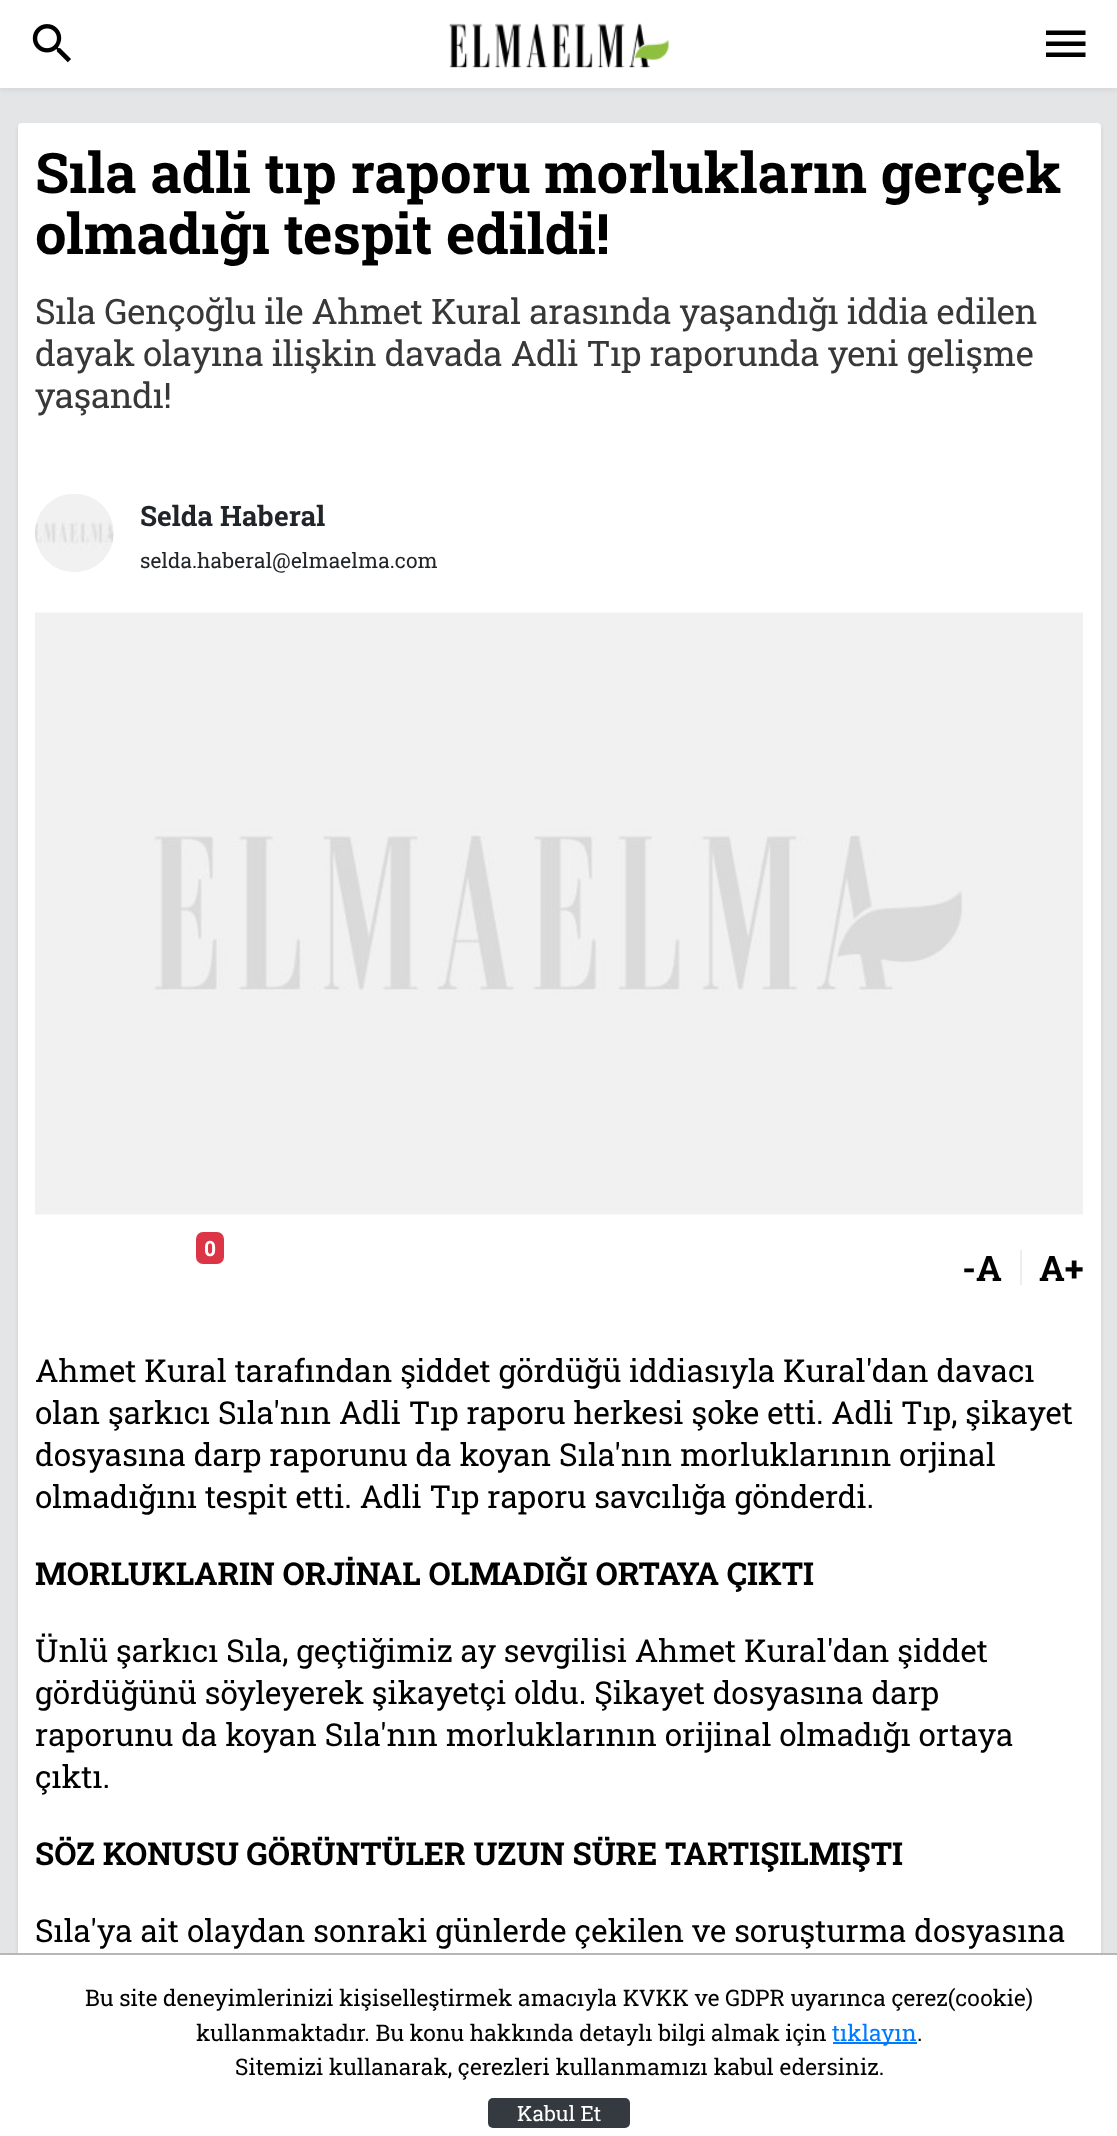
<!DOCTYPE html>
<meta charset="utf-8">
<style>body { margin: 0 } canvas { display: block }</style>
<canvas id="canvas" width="1117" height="2136"></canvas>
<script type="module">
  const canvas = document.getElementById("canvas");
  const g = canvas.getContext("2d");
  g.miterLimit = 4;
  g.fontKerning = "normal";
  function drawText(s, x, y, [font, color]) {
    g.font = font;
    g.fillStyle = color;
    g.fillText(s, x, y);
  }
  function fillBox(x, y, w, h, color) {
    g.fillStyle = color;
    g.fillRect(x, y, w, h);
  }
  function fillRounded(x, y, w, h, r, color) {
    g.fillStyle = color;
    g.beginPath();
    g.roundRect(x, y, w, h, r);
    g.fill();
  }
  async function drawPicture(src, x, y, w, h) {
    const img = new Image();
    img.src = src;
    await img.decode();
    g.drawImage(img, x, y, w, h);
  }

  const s1 = ["bold 56px Roboto Slab", "#000000"];
  const s2 = ["35px Roboto Slab", "#383838"];
  const s3 = ["bold 28px Roboto Slab", "#212529"];
  const s4 = ["21px Roboto Slab", "#212529"];
  const s5 = ["bold 21px Roboto Slab", "#FFFFFF"];
  const s6 = ["bold 35px Roboto Slab", "#000000"];
  const s7 = ["31.5px Roboto Slab", "#000000"];
  const s8 = ["bold 31.5px Roboto Slab", "#000000"];
  const s9 = ["22.75px Roboto Slab", "#000000"];
  const s10 = ["22.75px Roboto Slab", "#007BFF"];
  const s11 = ["21px Roboto Slab", "#FFFFFF"];

  fillBox(0, 0, 1117, 2136, "#E4E5E7");
  g.fillStyle = "rgba(0, 0, 0, 0.05)";
  g.filter = "blur(2px)";
  g.beginPath();
  g.rect(0, 4, 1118, 87);
  g.fill();
  g.filter = "none";
  fillBox(0, 0, 1117, 88, "#FFFFFF");
  await drawPicture("pic1.png", 32, 24, 39, 39);
  await drawPicture("pic2.png", 449, 23, 220, 45);
  g.fillStyle = "#000000";
  g.beginPath();
  g.moveTo(1046, 30.5);
  g.lineTo(1085.5, 30.5);
  g.lineTo(1085.5, 35);
  g.lineTo(1046, 35);
  g.closePath();
  g.moveTo(1046, 46);
  g.lineTo(1046, 41.5);
  g.lineTo(1085.5, 41.5);
  g.lineTo(1085.5, 46);
  g.closePath();
  g.moveTo(1046, 57);
  g.lineTo(1046, 52.5);
  g.lineTo(1085.5, 52.5);
  g.lineTo(1085.5, 57);
  g.closePath();
  g.fill();
  g.fillStyle = "rgba(0, 0, 0, 0.1)";
  g.filter = "blur(2px)";
  g.beginPath();
  g.roundRect(18, 126, 1083, 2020, 4);
  g.fill();
  g.filter = "none";
  fillRounded(18, 123, 1083, 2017, 4, "#FFFFFF");
  drawText("Sıla adli tıp raporu morlukların gerçek", 35, 193, s1);
  drawText("olmadığı tespit edildi!", 35, 254, s1);
  g.letterSpacing = "-0.35px";
  drawText("Sıla Gençoğlu ile Ahmet Kural arasında yaşandığı iddia edilen", 35, 324, s2);
  drawText("dayak olayına ilişkin davada Adli Tıp raporunda yeni gelişme", 35, 366, s2);
  drawText("yaşandı!", 35, 408, s2);
  await drawPicture("pic3.png", 35, 494, 79, 78);
  g.letterSpacing = "0px";
  drawText("Selda Haberal", 140, 526, s3);
  drawText("selda.haberal@elmaelma.com", 140, 568, s4);
  await drawPicture("pic4.png", 35, 612, 1048, 603);
  fillRounded(196, 1232, 28, 32, 7, "#DC3545");
  drawText("0", 204, 1256, s5);
  drawText("-A", 962, 1281, s6);
  fillBox(1020, 1250, 2, 35, "#EEEEEE");
  drawText("A+", 1039, 1281, s6);
  drawText("Ahmet Kural tarafından şiddet gördüğü iddiasıyla Kural'dan davacı", 35, 1382, s7);
  drawText("olan şarkıcı Sıla'nın Adli Tıp raporu herkesi şoke etti. Adli Tıp, şikayet", 35, 1424, s7);
  drawText("dosyasına darp raporunu da koyan Sıla'nın morluklarının orjinal", 35, 1466, s7);
  drawText("olmadığını tespit etti. Adli Tıp raporu savcılığa gönderdi.", 35, 1508, s7);
  drawText("MORLUKLARIN ORJİNAL OLMADIĞI ORTAYA ÇIKTI", 35, 1585, s8);
  drawText("Ünlü şarkıcı Sıla, geçtiğimiz ay sevgilisi Ahmet Kural'dan şiddet", 35, 1662, s7);
  drawText("gördüğünü söyleyerek şikayetçi oldu. Şikayet dosyasına darp", 35, 1704, s7);
  drawText("raporunu da koyan Sıla'nın morluklarının orijinal olmadığı ortaya", 35, 1746, s7);
  drawText("çıktı.", 35, 1788, s7);
  drawText("SÖZ KONUSU GÖRÜNTÜLER UZUN SÜRE TARTIŞILMIŞTI", 35, 1865, s8);
  drawText("Sıla'ya ait olaydan sonraki günlerde çekilen ve soruşturma dosyasına", 35, 1942, s7);
  fillBox(0, 1955, 1117, 181, "#FFFFFF");
  fillBox(0, 1953, 1117, 2, "#B7B7B7");
  drawText("Bu site deneyimlerinizi kişiselleştirmek amacıyla KVKK ve GDPR uyarınca çerez(cookie)", 85, 2006, s9);
  drawText("kullanmaktadır. Bu konu hakkında detaylı bilgi almak için", 196, 2041, s9);
  fillBox(833, 2042, 84, 2, "#007BFF");
  drawText("tıklayın", 832, 2041, s10);
  drawText(".", 917, 2041, s9);
  drawText("Sitemizi kullanarak, çerezleri kullanmamızı kabul edersiniz.", 235, 2075, s9);
  fillRounded(488, 2098, 142, 30, 5, "#343A40");
  drawText("Kabul Et", 517, 2121, s11);
</script>
